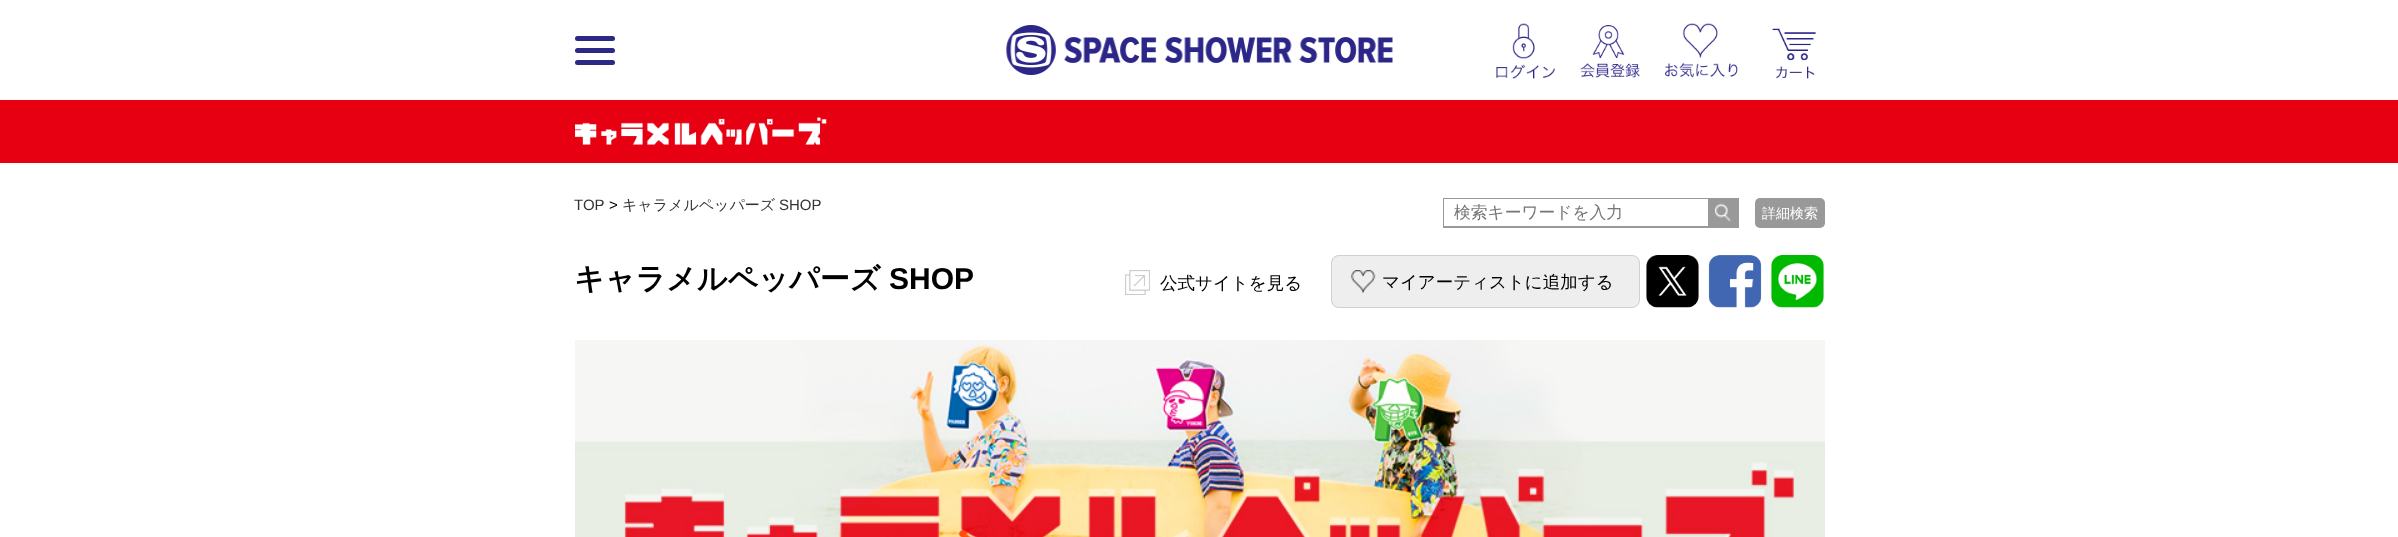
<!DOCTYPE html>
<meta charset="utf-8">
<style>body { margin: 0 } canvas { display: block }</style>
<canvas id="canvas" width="2398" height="537"></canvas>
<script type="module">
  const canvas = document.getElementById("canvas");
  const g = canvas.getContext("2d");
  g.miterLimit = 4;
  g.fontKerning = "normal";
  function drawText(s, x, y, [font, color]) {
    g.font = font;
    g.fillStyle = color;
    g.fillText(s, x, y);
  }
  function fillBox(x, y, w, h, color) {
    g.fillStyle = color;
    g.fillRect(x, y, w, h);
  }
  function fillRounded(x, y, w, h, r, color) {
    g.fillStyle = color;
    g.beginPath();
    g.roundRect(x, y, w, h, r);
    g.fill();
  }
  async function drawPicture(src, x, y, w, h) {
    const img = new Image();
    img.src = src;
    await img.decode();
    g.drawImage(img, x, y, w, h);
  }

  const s1 = ["15px Liberation Sans", "#333333"];
  const s2 = ["15px Liberation Sans", "#000000"];
  const s3 = ["500 15px WenQuanYi Zen Hei", "#333333"];
  const s4 = ["500 16.75px WenQuanYi Zen Hei", "#757575"];
  const s5 = ["500 14px WenQuanYi Zen Hei", "#FFFFFF"];
  const s6 = ["bold 30px WenQuanYi Zen Hei", "#000000"];
  const s7 = ["bold 30px Liberation Sans", "#000000"];
  const s8 = ["500 17.5px WenQuanYi Zen Hei", "#000000"];

  fillBox(0, 0, 2398, 537, "#FFFFFF");
  fillRounded(575, 36, 40, 5, 2.5, "#2C2986");
  fillRounded(575, 48, 40, 5, 2.5, "#2C2986");
  fillRounded(575, 60, 40, 5, 2.5, "#2C2986");
  await drawPicture("pic1.png", 1006, 25, 387, 50);
  await drawPicture("pic2.png", 1496, 23, 59, 56);
  await drawPicture("pic3.png", 1580, 25, 60, 53);
  await drawPicture("pic4.png", 1665, 23, 73, 55);
  await drawPicture("pic5.png", 1772, 28, 44, 51);
  fillBox(0, 100, 2398, 63, "#E70012");
  await drawPicture("pic6.png", 575, 117, 252, 28);
  drawText("TOP", 574, 210, s1);
  drawText(">", 609, 210, s2);
  drawText("キャラメルペッパーズ", 622, 210, s3);
  drawText("SHOP", 779, 210, s1);
  fillBox(1443, 198, 296, 30, "#999999");
  fillBox(1444, 199, 264, 27, "#FFFFFF");
  drawText("検索キーワードを入力", 1454, 218, s4);
  await drawPicture("pic7.png", 1714, 203, 17, 19);
  fillRounded(1755, 198, 70, 30, 5, "#999999");
  drawText("詳細検索", 1762, 218, s5);
  drawText("キャラメルペッパーズ", 574, 289, s6);
  drawText("SHOP", 889, 289, s7);
  await drawPicture("pic8.png", 1125, 270, 25, 25);
  drawText("公式サイトを見る", 1160, 289, s8);
  fillRounded(1331, 255, 309, 53, 8, "#EEEEEE");
  await drawPicture("pic9.png", 1351, 270, 25, 23);
  g.beginPath();
  g.roundRect(1331.5, 255.5, 308, 52, 7.5);
  g.strokeStyle = "#D0D0D0";
  g.stroke();
  drawText("マイアーティストに追加する", 1382, 288, s8);
  await drawPicture("pic10.png", 1646, 255, 53, 53);
  await drawPicture("pic11.png", 1708, 255, 54, 53);
  await drawPicture("pic12.png", 1771, 255, 53, 53);
  await drawPicture("pic13.png", 575, 340, 1250, 197);
</script>
